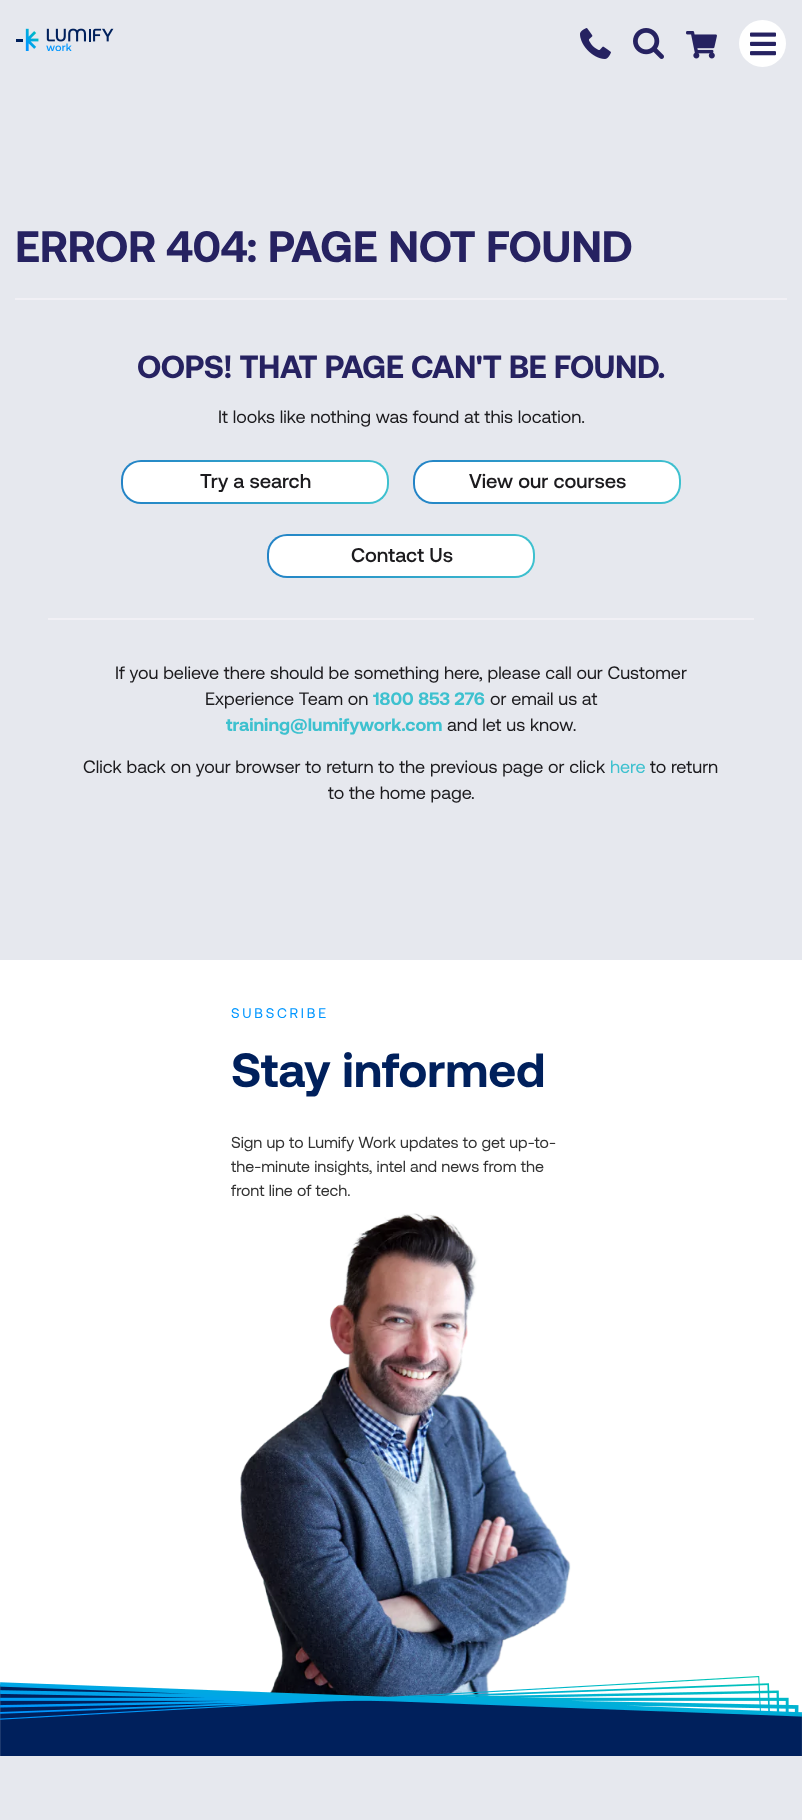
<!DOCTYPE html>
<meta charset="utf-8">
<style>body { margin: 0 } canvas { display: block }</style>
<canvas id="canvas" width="802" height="1820"></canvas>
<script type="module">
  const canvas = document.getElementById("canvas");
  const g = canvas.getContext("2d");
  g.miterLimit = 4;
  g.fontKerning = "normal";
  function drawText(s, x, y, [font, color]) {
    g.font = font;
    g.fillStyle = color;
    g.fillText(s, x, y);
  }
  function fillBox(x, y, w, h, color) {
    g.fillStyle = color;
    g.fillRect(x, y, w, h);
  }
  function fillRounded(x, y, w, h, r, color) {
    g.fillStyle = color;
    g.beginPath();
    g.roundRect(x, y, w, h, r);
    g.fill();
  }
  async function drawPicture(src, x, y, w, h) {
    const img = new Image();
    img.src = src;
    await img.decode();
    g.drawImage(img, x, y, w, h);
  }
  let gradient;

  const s1 = ["bold 44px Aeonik", "#262261"];
  const s2 = ["bold 32px Aeonik", "#262261"];
  const s3 = ["18px Aeonik", "#1C1B1E"];
  const s4 = ["500 20px Aeonik", "#1C1B1E"];
  const s5 = ["bold 18px Aeonik", "#3EC1CF"];
  const s6 = ["18px Aeonik", "#3EC1CF"];
  const s7 = ["14px Aeonik", "#0096FF"];
  const s8 = ["bold 48px Aeonik", "#00205C"];
  const s9 = ["16px Aeonik", "#333333"];

  fillBox(0, 0, 802, 1820, "#E6E8EE");
  await drawPicture("pic1.png", 16, 28, 98, 23);
  await drawPicture("pic2.png", 580, 28, 31, 31);
  await drawPicture("pic3.png", 633, 28, 31, 31);
  await drawPicture("pic4.png", 686, 31, 31, 28);
  g.fillStyle = "#FFFFFF";
  g.beginPath();
  g.arc(762.5, 43.5, 23.5, 0, Math.PI * 2);
  g.fill();
  await drawPicture("pic5.png", 750, 32, 26, 24);
  g.letterSpacing = "-0.35px";
  drawText("ERROR 404: PAGE NOT FOUND", 15, 262, s1);
  fillBox(15, 298, 772, 2, "#F1F0F5");
  g.letterSpacing = "-0.5px";
  drawText("OOPS! THAT PAGE CAN'T BE FOUND.", 137, 378, s2);
  g.letterSpacing = "0px";
  drawText("It looks like nothing was found at this location.", 218, 423, s3);
  gradient = g.createLinearGradient(389, 482, 121, 482);
  gradient.addColorStop(0, "#3EC1CF");
  gradient.addColorStop(1, "#2383C6");
  g.fillStyle = gradient;
  g.beginPath();
  g.roundRect(121, 460, 268, 44, 20);
  g.fill();
  fillRounded(123, 462, 264, 40, 18, "#FFFFFF");
  drawText("Try a search", 200, 488, s4);
  gradient = g.createLinearGradient(681, 482, 413, 482);
  gradient.addColorStop(0, "#3EC1CF");
  gradient.addColorStop(1, "#2383C6");
  g.fillStyle = gradient;
  g.beginPath();
  g.roundRect(413, 460, 268, 44, 20);
  g.fill();
  fillRounded(415, 462, 264, 40, 18, "#FFFFFF");
  drawText("View our courses", 469, 488, s4);
  gradient = g.createLinearGradient(535, 556, 267, 556);
  gradient.addColorStop(0, "#3EC1CF");
  gradient.addColorStop(1, "#2383C6");
  g.fillStyle = gradient;
  g.beginPath();
  g.roundRect(267, 534, 268, 44, 20);
  g.fill();
  fillRounded(269, 536, 264, 40, 18, "#FFFFFF");
  drawText("Contact Us", 351, 562, s4);
  fillBox(48, 618, 706, 2, "#F1F0F5");
  drawText("If you believe there should be something here, please call our Customer", 115, 679, s3);
  drawText("Experience Team on", 205, 705, s3);
  drawText("1800 853 276", 373, 705, s5);
  drawText("or email us at", 490, 705, s3);
  drawText("training@lumifywork.com", 226, 731, s5);
  drawText("and let us know.", 447, 731, s3);
  drawText("Click back on your browser to return to the previous page or click", 83, 773, s3);
  drawText("here", 610, 773, s6);
  drawText("to return", 650, 773, s3);
  drawText("to the home page.", 328, 799, s3);
  fillBox(0, 960, 802, 752, "#FFFFFF");
  g.letterSpacing = "2.75px";
  drawText("SUBSCRIBE", 231, 1018, s7);
  g.letterSpacing = "0px";
  drawText("Stay informed", 231, 1087, s8);
  drawText("Sign up to Lumify Work updates to get up-to-", 231, 1148, s9);
  drawText("the-minute insights, intel and news from the", 231, 1172, s9);
  drawText("front line of tech.", 231, 1196, s9);
  await drawPicture("pic6.png", 240, 1213, 331, 484);
  await drawPicture("pic7.png", 0, 1676, 802, 80);
</script>
